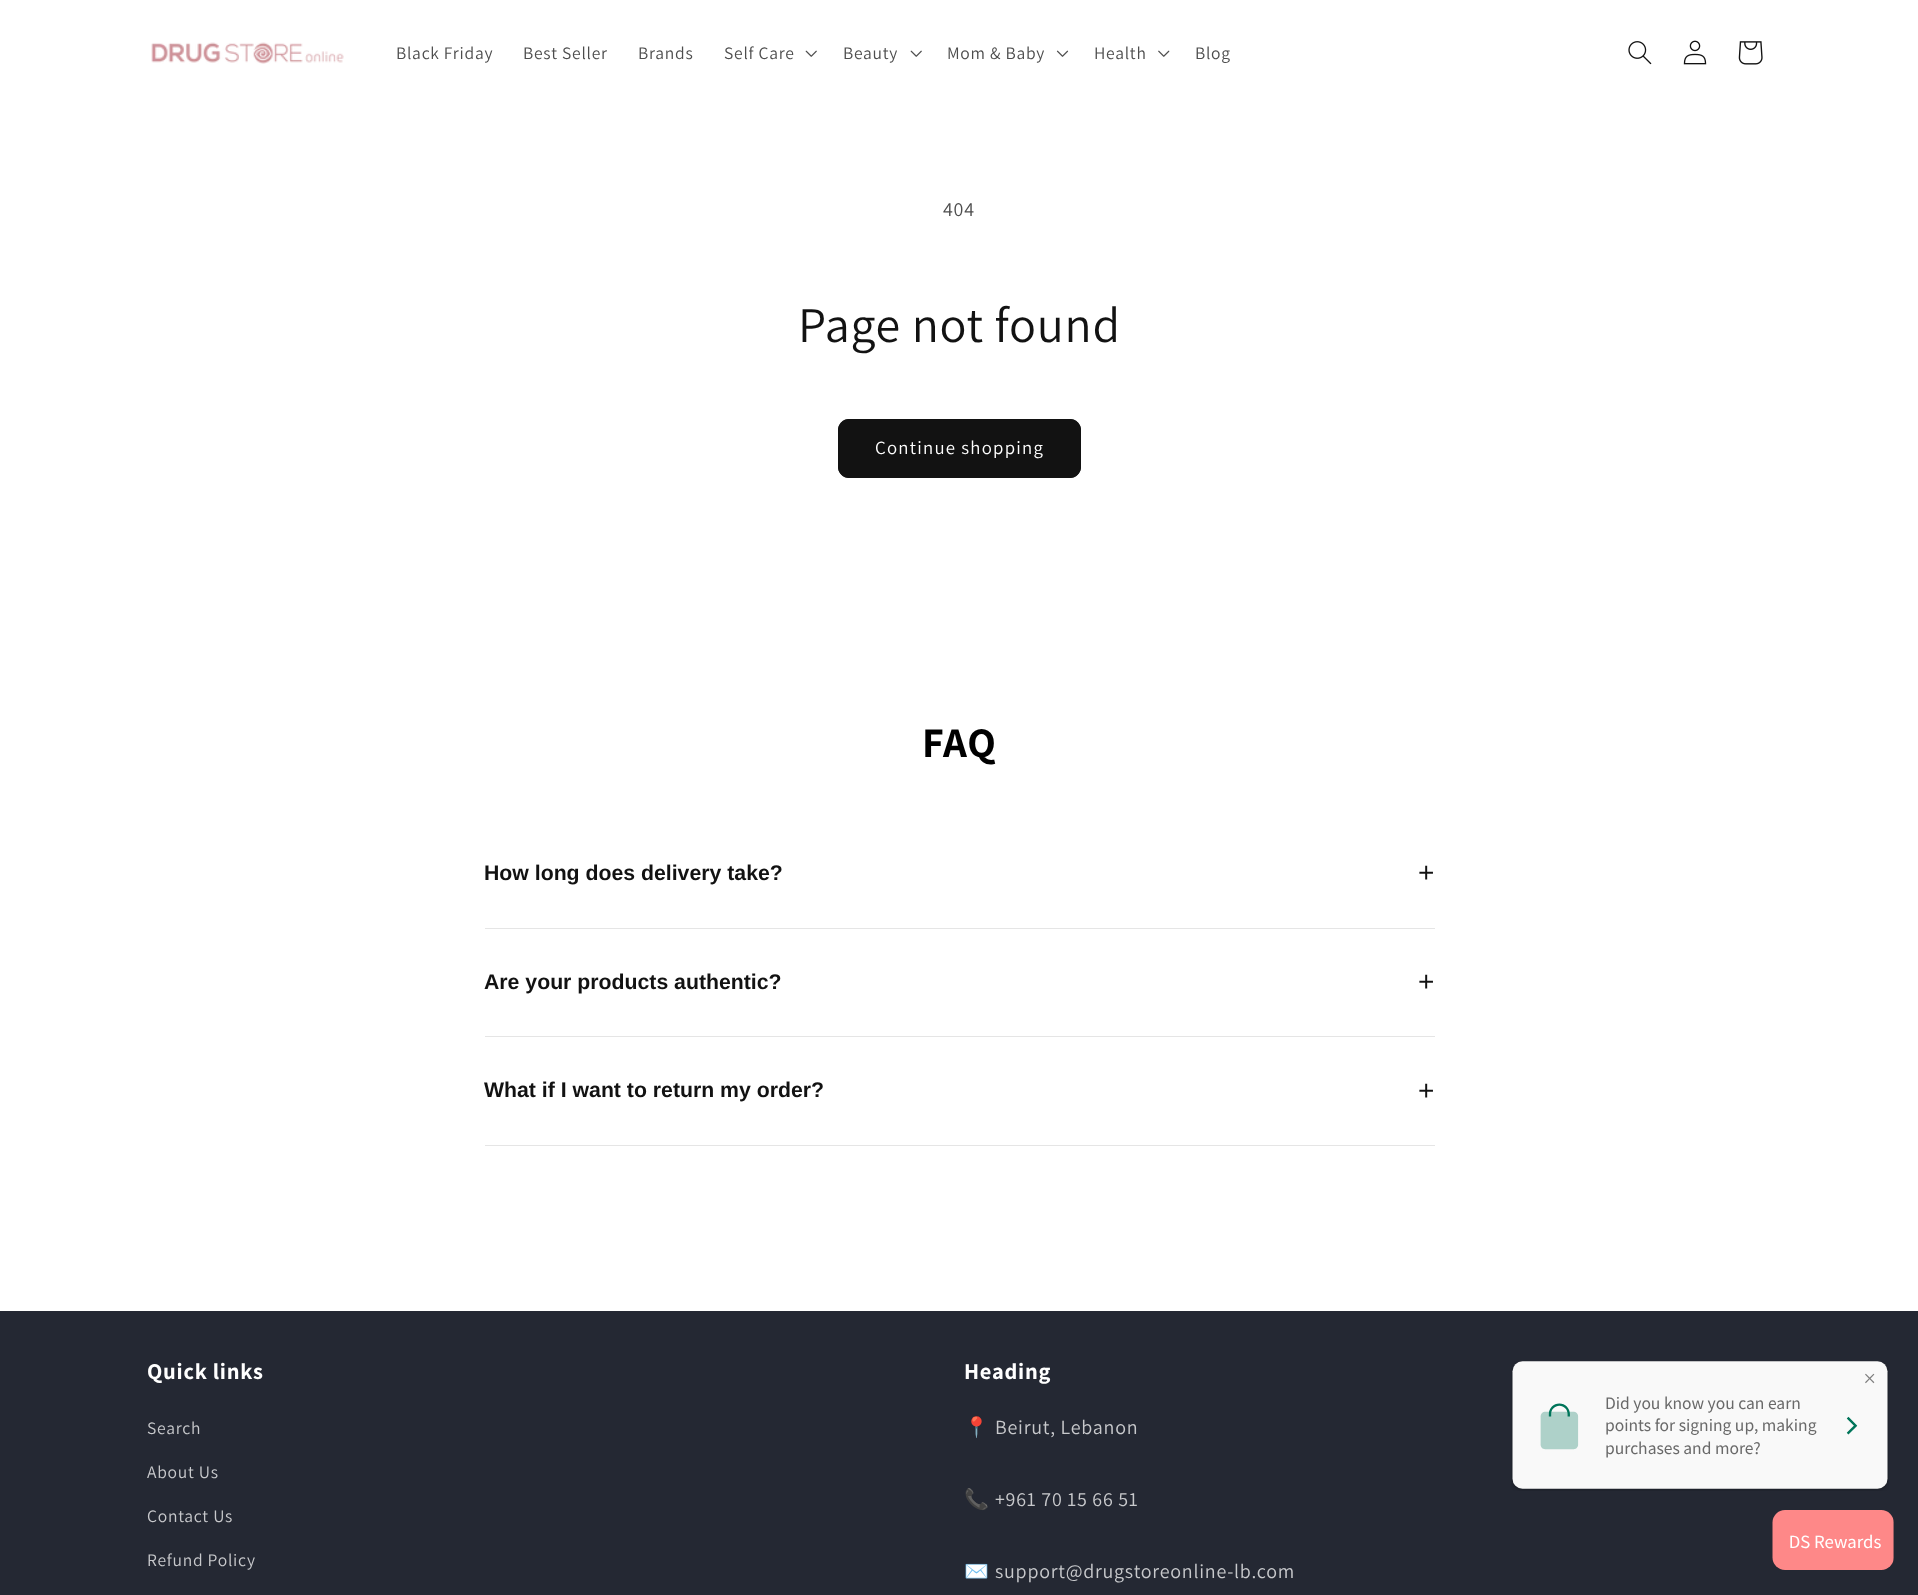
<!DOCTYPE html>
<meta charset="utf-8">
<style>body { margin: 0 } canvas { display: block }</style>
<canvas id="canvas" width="1918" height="1595"></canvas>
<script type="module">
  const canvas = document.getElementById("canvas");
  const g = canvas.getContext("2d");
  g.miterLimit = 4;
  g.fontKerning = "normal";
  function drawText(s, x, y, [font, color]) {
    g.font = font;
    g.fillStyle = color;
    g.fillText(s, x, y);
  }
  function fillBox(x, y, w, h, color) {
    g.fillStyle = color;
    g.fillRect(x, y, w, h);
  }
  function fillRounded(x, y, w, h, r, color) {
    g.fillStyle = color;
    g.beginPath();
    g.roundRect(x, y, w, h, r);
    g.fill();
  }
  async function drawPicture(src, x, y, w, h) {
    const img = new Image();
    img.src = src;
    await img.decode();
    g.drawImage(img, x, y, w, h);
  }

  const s1 = ["17.5px Assistant", "#4D4D4D"];
  const s2 = ["20px Assistant", "#4D4D4D"];
  const s3 = ["50px Assistant", "#121212"];
  const s4 = ["18.75px Assistant", "#FFFFFF"];
  const s5 = ["bold 42px Assistant", "#000000"];
  const s6 = ["bold 21.25px Liberation Sans", "#121212"];
  const s7 = ["28px Liberation Sans", "#121212"];
  const s8 = ["bold 22.5px Assistant", "#FFFFFF"];
  const s9 = ["17.5px Assistant", "#C8C9CC"];
  const s10 = ["20px Noto Color Emoji", "#C8C9CC"];
  const s11 = ["20px Assistant", "#C8C9CC"];

  fillBox(0, 0, 1918, 1595, "#FFFFFF");
  await drawPicture("pic1.png", 151, 42, 193, 22);
  g.letterSpacing = "0.75px";
  drawText("Black Friday", 396, 59, s1);
  drawText("Best Seller", 523, 59, s1);
  drawText("Brands", 638, 59, s1);
  drawText("Self Care", 724, 59, s1);
  await drawPicture("pic2.png", 805, 50, 12, 7);
  drawText("Beauty", 843, 59, s1);
  await drawPicture("pic2.png", 910, 50, 12, 7);
  drawText("Mom & Baby", 947, 59, s1);
  await drawPicture("pic3.png", 1056, 50, 13, 7);
  drawText("Health", 1094, 59, s1);
  await drawPicture("pic4.png", 1158, 50, 12, 7);
  drawText("Blog", 1195, 59, s1);
  await drawPicture("pic5.png", 1628, 41, 24, 24);
  await drawPicture("pic6.png", 1683, 40, 24, 25);
  await drawPicture("pic7.png", 1738, 41, 25, 24);
  drawText("404", 943, 216, s2);
  drawText("Page not found", 798, 342, s3);
  fillRounded(838, 419, 243, 59, 11, "#121212");
  g.beginPath();
  g.roundRect(838.5, 419.5, 242, 58, 10.5);
  g.strokeStyle = "#121212";
  g.stroke();
  g.letterSpacing = "1.25px";
  drawText("Continue shopping", 875, 454, s4);
  g.letterSpacing = "0.75px";
  drawText("FAQ", 922, 757, s5);
  fillBox(485, 928, 950, 1, "#E5E5E5");
  g.letterSpacing = "0px";
  drawText("How long does delivery take?", 484, 880, s6);
  drawText("+", 1418, 882, s7);
  fillBox(485, 1036, 950, 1, "#E5E5E5");
  drawText("Are your products authentic?", 484, 989, s6);
  drawText("+", 1418, 991, s7);
  fillBox(485, 1145, 950, 1, "#E5E5E5");
  drawText("What if I want to return my order?", 484, 1097, s6);
  drawText("+", 1418, 1100, s7);
  fillBox(0, 1311, 1918, 284, "#242833");
  g.letterSpacing = "0.75px";
  drawText("Quick links", 147, 1379, s8);
  drawText("Search", 147, 1434, s9);
  drawText("About Us", 147, 1478, s9);
  drawText("Contact Us", 147, 1522, s9);
  drawText("Refund Policy", 147, 1566, s9);
  drawText("Heading", 964, 1379, s8);
  drawText("📍", 964, 1434, s10);
  drawText("Beirut, Lebanon", 995, 1434, s11);
  drawText("📞", 964, 1506, s10);
  drawText("+961 70 15 66 51", 995, 1506, s11);
  drawText("✉️", 964, 1578, s10);
  drawText("support@drugstoreonline-lb.com", 995, 1578, s11);
  await drawPicture("pic8.png", 1511, 1361, 378, 130);
  await drawPicture("pic9.png", 1772, 1510, 122, 60);
</script>
